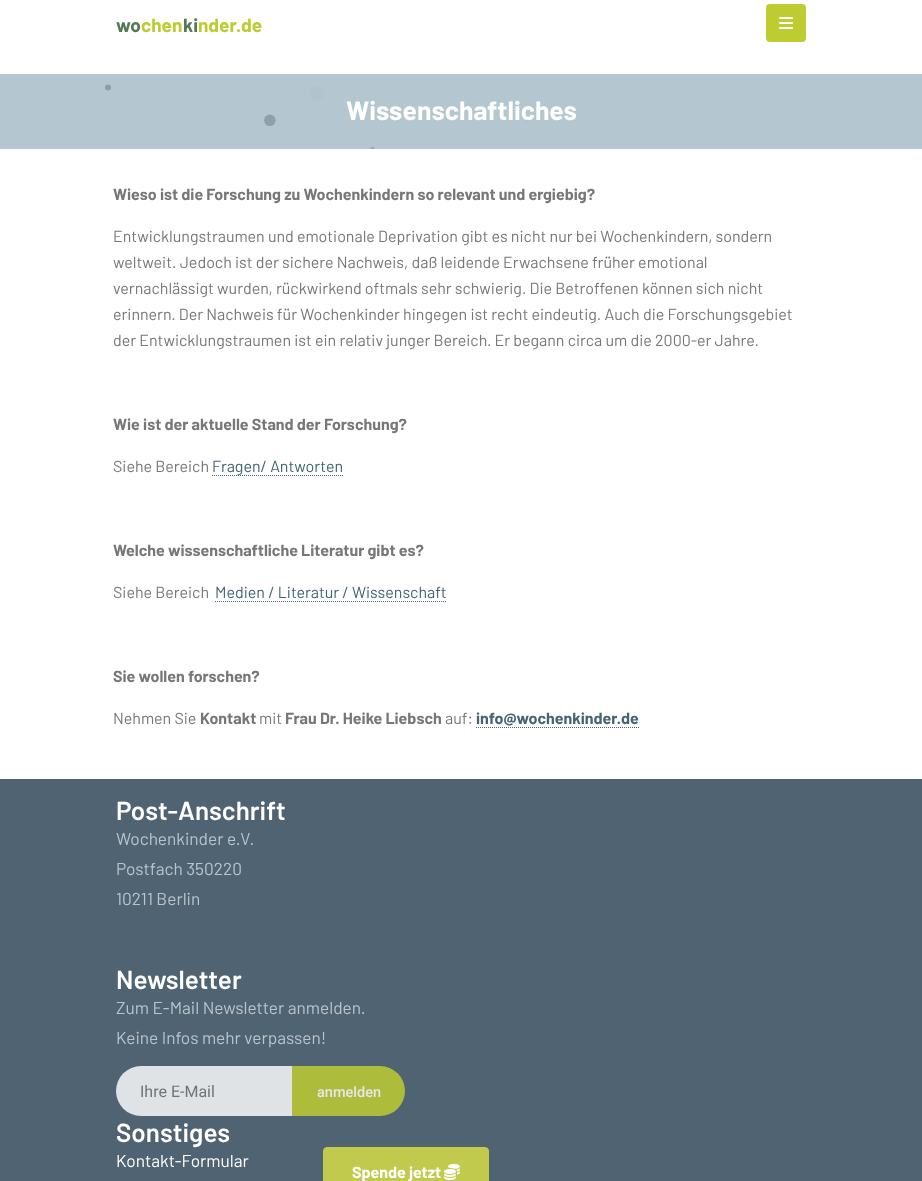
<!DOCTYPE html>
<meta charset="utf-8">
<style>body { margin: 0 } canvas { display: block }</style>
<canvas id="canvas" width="922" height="1181"></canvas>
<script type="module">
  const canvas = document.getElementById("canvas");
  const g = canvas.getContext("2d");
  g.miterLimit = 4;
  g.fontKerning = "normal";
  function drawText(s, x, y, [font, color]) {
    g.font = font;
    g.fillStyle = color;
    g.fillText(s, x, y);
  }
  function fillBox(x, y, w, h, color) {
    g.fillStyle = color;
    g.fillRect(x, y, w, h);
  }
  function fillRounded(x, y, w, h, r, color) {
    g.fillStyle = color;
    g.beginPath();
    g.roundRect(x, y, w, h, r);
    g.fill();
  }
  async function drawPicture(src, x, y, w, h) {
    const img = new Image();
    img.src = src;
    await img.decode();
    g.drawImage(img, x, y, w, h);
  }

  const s1 = ["bold 19px Barlow", "#537957"];
  const s2 = ["bold 19px Barlow", "#BDCC31"];
  const s3 = ["bold 26.5px Barlow", "#FFFFFF"];
  const s4 = ["bold 16px Barlow", "#777777"];
  const s5 = ["16px Barlow", "#777777"];
  const s6 = ["16px Barlow", "#456473"];
  const s7 = ["bold 16px Barlow", "#456473"];
  const s8 = ["600 26px Barlow", "#FFFFFF"];
  const s9 = ["17.25px Barlow", "#B9C5CE"];
  const s10 = ["16px Roboto", "#717476"];
  const s11 = ["500 14.5px Roboto", "#E5E8EA"];
  const s12 = ["17.25px Barlow", "#FFFFFF"];
  const s13 = ["bold 16px Barlow", "#FFFFFF"];

  fillBox(0, 0, 922, 1181, "#FFFFFF");
  drawText("wo", 116, 32, s1);
  drawText("chen", 141, 32, s2);
  drawText("ki", 183, 32, s1);
  drawText("nder.de", 198, 32, s2);
  fillRounded(766, 4, 40, 38, 4, "#BDCC31");
  await drawPicture("pic1.png", 779, 17, 14, 12);
  fillBox(0, 74, 922, 75, "#B4C6CF");
  drawText("Wissenschaftliches", 346, 120, s3);
  await drawPicture("pic2.png", 105, 84, 424, 65);
  drawText("Wieso ist die Forschung zu Wochenkindern so relevant und ergiebig?", 113, 200, s4);
  drawText("Entwicklungstraumen und emotionale Deprivation gibt es nicht nur bei Wochenkindern, sondern", 113, 242, s5);
  drawText("weltweit. Jedoch ist der sichere Nachweis, daß leidende Erwachsene früher emotional", 113, 268, s5);
  drawText("vernachlässigt wurden, rückwirkend oftmals sehr schwierig. Die Betroffenen können sich nicht", 113, 294, s5);
  drawText("erinnern. Der Nachweis für Wochenkinder hingegen ist recht eindeutig. Auch die Forschungsgebiet", 113, 320, s5);
  drawText("der Entwicklungstraumen ist ein relativ junger Bereich. Er begann circa um die 2000-er Jahre.", 113, 346, s5);
  drawText("Wie ist der aktuelle Stand der Forschung?", 113, 430, s4);
  drawText("Siehe Bereich", 113, 472, s5);
  g.beginPath();
  g.moveTo(212, 475.5);
  g.lineTo(343, 475.5);
  g.strokeStyle = "#4F6372";
  g.setLineDash([1, 1]);
  g.stroke();
  drawText("Fragen/ Antworten", 212, 472, s6);
  drawText("Welche wissenschaftliche Literatur gibt es?", 113, 556, s4);
  drawText("Siehe Bereich", 113, 598, s5);
  drawText("Medien / Literatur / Wissenschaft", 215, 598, s6);
  g.beginPath();
  g.moveTo(215, 601.5);
  g.lineTo(447, 601.5);
  g.stroke();
  drawText("Sie wollen forschen?", 113, 682, s4);
  drawText("Nehmen Sie", 113, 724, s5);
  drawText("Kontakt", 200, 724, s4);
  drawText("mit", 259, 724, s5);
  drawText("Frau Dr. Heike Liebsch", 285, 724, s4);
  drawText("auf:", 445, 724, s5);
  drawText("info@wochenkinder.de", 476, 724, s7);
  g.beginPath();
  g.moveTo(476, 727.5);
  g.lineTo(639, 727.5);
  g.stroke();
  fillBox(0, 779, 922, 402, "#4F6372");
  drawText("Post-Anschrift", 116, 820, s8);
  drawText("Wochenkinder e.V.", 116, 845, s9);
  drawText("Postfach 350220", 116, 875, s9);
  drawText("10211 Berlin", 116, 905, s9);
  drawText("Newsletter", 116, 989, s8);
  drawText("Zum E-Mail Newsletter anmelden.", 116, 1014, s9);
  drawText("Keine Infos mehr verpassen!", 116, 1044, s9);
  g.fillStyle = "#DFE3E6";
  g.beginPath();
  g.roundRect(116, 1066, 176, 50, [25, 0, 0, 25]);
  g.fill();
  drawText("Ihre E-Mail", 140, 1097, s10);
  g.fillStyle = "#ADBC3B";
  g.beginPath();
  g.roundRect(292, 1066, 113, 50, [0, 25, 25, 0]);
  g.fill();
  drawText("anmelden", 317, 1097, s11);
  drawText("Sonstiges", 116, 1142, s8);
  drawText("Kontakt-Formular", 116, 1167, s12);
  g.fillStyle = "#C1CA4C";
  g.beginPath();
  g.roundRect(323.5, 1147.5, 165, 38, 3.5);
  g.fill();
  g.strokeStyle = "#C1CA4C";
  g.setLineDash([]);
  g.stroke();
  drawText("Spende jetzt", 352, 1178, s13);
  await drawPicture("pic3.png", 444, 1164, 16, 16);
</script>
